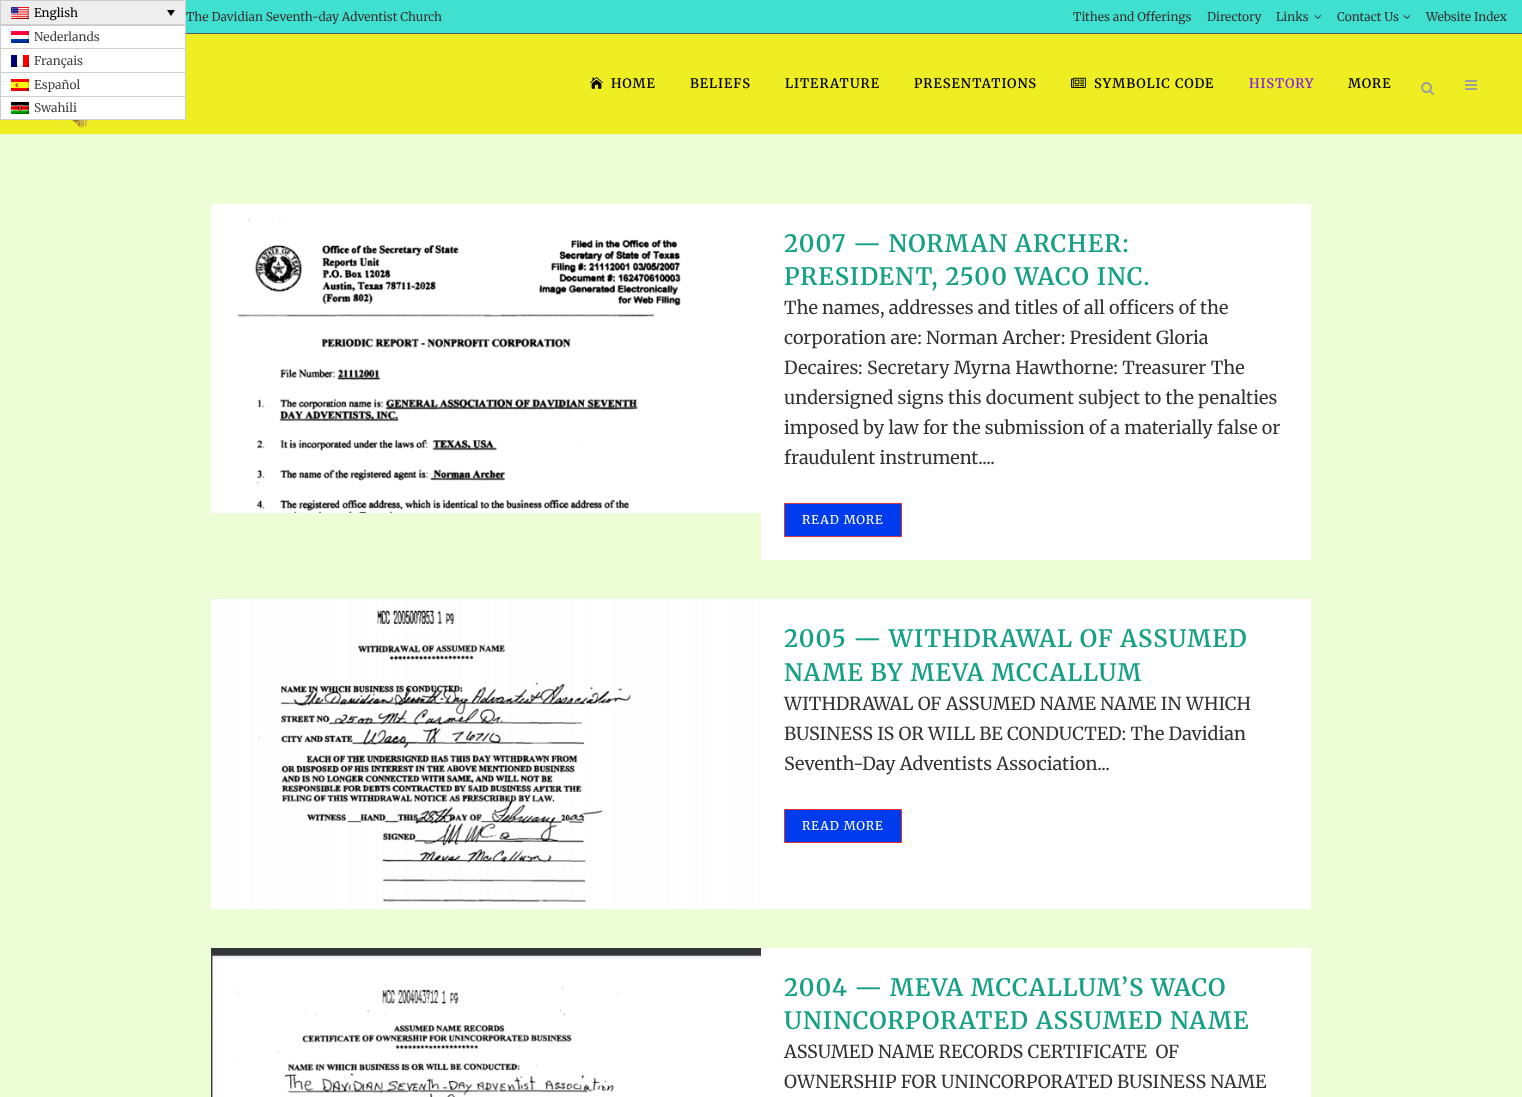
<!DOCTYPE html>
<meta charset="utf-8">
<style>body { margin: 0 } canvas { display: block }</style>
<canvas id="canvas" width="1522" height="1097"></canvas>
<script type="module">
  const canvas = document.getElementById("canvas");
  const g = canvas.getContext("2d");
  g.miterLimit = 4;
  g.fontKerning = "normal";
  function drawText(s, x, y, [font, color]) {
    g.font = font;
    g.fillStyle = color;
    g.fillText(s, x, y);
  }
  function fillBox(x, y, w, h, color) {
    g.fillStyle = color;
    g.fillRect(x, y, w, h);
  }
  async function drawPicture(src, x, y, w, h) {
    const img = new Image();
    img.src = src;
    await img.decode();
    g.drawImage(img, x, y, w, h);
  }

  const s1 = ["12px Merriweather", "#000000"];
  const s2 = ["12px Merriweather", "#444444"];
  const s3 = ["12px Merriweather", "#333333"];
  const s4 = ["600 13px Merriweather", "#000000"];
  const s5 = ["600 13px Merriweather", "#8224E3"];
  const s6 = ["600 24px Merriweather", "#16A085"];
  const s7 = ["18px Merriweather", "#333333"];
  const s8 = ["12px Merriweather", "#FFFFFF"];

  fillBox(0, 0, 1522, 1097, "#EDFED6");
  fillBox(186, 0, 1336, 33, "#40E0D0");
  fillBox(186, 33, 1336, 1, "#595666");
  g.fillStyle = "#EEEEEE";
  g.beginPath();
  g.rect(0.5, 0.5, 185, 24);
  g.fill();
  g.strokeStyle = "#CDCDCD";
  g.stroke();
  await drawPicture("pic1.png", 11, 7, 18, 12);
  drawText("English", 34, 17, s1);
  g.beginPath();
  g.moveTo(167, 10);
  g.lineTo(175, 10);
  g.lineTo(171, 16);
  g.closePath();
  g.fill();
  fillBox(0, 25, 186, 1, "#CDCDCD");
  fillBox(0, 34, 1522, 100, "#EEEE22");
  fillBox(1, 26, 184, 22, "#FFFFFF");
  fillBox(185, 26, 1, 94, "#CDCDCD");
  fillBox(0, 48, 186, 1, "#CDCDCD");
  fillBox(0, 26, 1, 23, "#CDCDCD");
  await drawPicture("pic2.png", 11, 31, 18, 12);
  drawText("Nederlands", 34, 41, s2);
  fillBox(1, 49, 184, 23, "#FFFFFF");
  fillBox(0, 72, 186, 1, "#CDCDCD");
  fillBox(0, 49, 1, 24, "#CDCDCD");
  await drawPicture("pic3.png", 11, 55, 18, 12);
  drawText("Français", 34, 65, s2);
  fillBox(1, 73, 184, 23, "#FFFFFF");
  fillBox(0, 96, 186, 1, "#CDCDCD");
  fillBox(0, 73, 1, 24, "#CDCDCD");
  await drawPicture("pic4.png", 11, 79, 18, 12);
  drawText("Español", 34, 89, s2);
  fillBox(1, 97, 184, 22, "#FFFFFF");
  fillBox(0, 119, 186, 1, "#CDCDCD");
  fillBox(0, 97, 1, 23, "#CDCDCD");
  await drawPicture("pic5.png", 11, 102, 18, 12);
  drawText("Swahili", 34, 112, s2);
  drawText("The Davidian Seventh-day Adventist Church", 186, 21, s3);
  drawText("Tithes and Offerings", 1073, 21, s3);
  drawText("Directory", 1207, 21, s3);
  drawText("Links", 1276, 21, s3);
  await drawPicture("pic6.png", 1314, 15, 8, 4);
  drawText("Contact Us", 1337, 21, s3);
  await drawPicture("pic6.png", 1403, 15, 8, 4);
  drawText("Website Index", 1426, 21, s3);
  await drawPicture("pic7.png", 590, 77, 13, 12);
  g.letterSpacing = "1px";
  drawText("HOME", 611, 88, s4);
  drawText("BELIEFS", 690, 88, s4);
  drawText("LITERATURE", 785, 88, s4);
  drawText("PRESENTATIONS", 914, 88, s4);
  await drawPicture("pic8.png", 1071, 77, 15, 11);
  drawText("SYMBOLIC CODE", 1094, 88, s4);
  drawText("HISTORY", 1249, 88, s5);
  drawText("MORE", 1348, 88, s4);
  await drawPicture("pic9.png", 1421, 82, 13, 13);
  await drawPicture("pic10.png", 1465, 80, 12, 10);
  await drawPicture("pic11.png", 72, 120, 18, 8);
  await drawPicture("pic12.png", 211, 204, 550, 309);
  fillBox(761, 204, 550, 356, "#FFFFFF");
  drawText("2007 — NORMAN ARCHER:", 784, 252, s6);
  drawText("PRESIDENT, 2500 WACO INC.", 784, 285, s6);
  g.letterSpacing = "0px";
  drawText("The names, addresses and titles of all officers of the", 784, 314, s7);
  drawText("corporation are: Norman Archer: President Gloria", 784, 344, s7);
  drawText("Decaires: Secretary Myrna Hawthorne: Treasurer The", 784, 374, s7);
  drawText("undersigned signs this document subject to the penalties", 784, 404, s7);
  drawText("imposed by law for the submission of a materially false or", 784, 434, s7);
  drawText("fraudulent instrument....", 784, 464, s7);
  g.fillStyle = "#003BED";
  g.beginPath();
  g.rect(784.5, 503.5, 117, 33);
  g.fill();
  g.strokeStyle = "#DD3333";
  g.stroke();
  g.letterSpacing = "1px";
  drawText("READ MORE", 802, 524, s8);
  await drawPicture("pic13.png", 211, 599, 550, 310);
  fillBox(761, 599, 550, 310, "#FFFFFF");
  drawText("2005 — WITHDRAWAL OF ASSUMED", 784, 647, s6);
  drawText("NAME BY MEVA MCCALLUM", 784, 681, s6);
  g.letterSpacing = "0px";
  drawText("WITHDRAWAL OF ASSUMED NAME NAME IN WHICH", 784, 710, s7);
  drawText("BUSINESS IS OR WILL BE CONDUCTED: The Davidian", 784, 740, s7);
  drawText("Seventh-Day Adventists Association...", 784, 770, s7);
  g.fillStyle = "#003BED";
  g.beginPath();
  g.rect(784.5, 809.5, 117, 33);
  g.fill();
  g.stroke();
  g.letterSpacing = "1px";
  drawText("READ MORE", 802, 830, s8);
  await drawPicture("pic14.png", 211, 948, 550, 149);
  fillBox(761, 948, 550, 149, "#FFFFFF");
  drawText("2004 — MEVA MCCALLUM’S WACO", 784, 996, s6);
  drawText("UNINCORPORATED ASSUMED NAME", 784, 1029, s6);
  g.letterSpacing = "0px";
  drawText("ASSUMED NAME RECORDS CERTIFICATE  OF", 784, 1058, s7);
  drawText("OWNERSHIP FOR UNINCORPORATED BUSINESS NAME", 784, 1088, s7);
</script>
